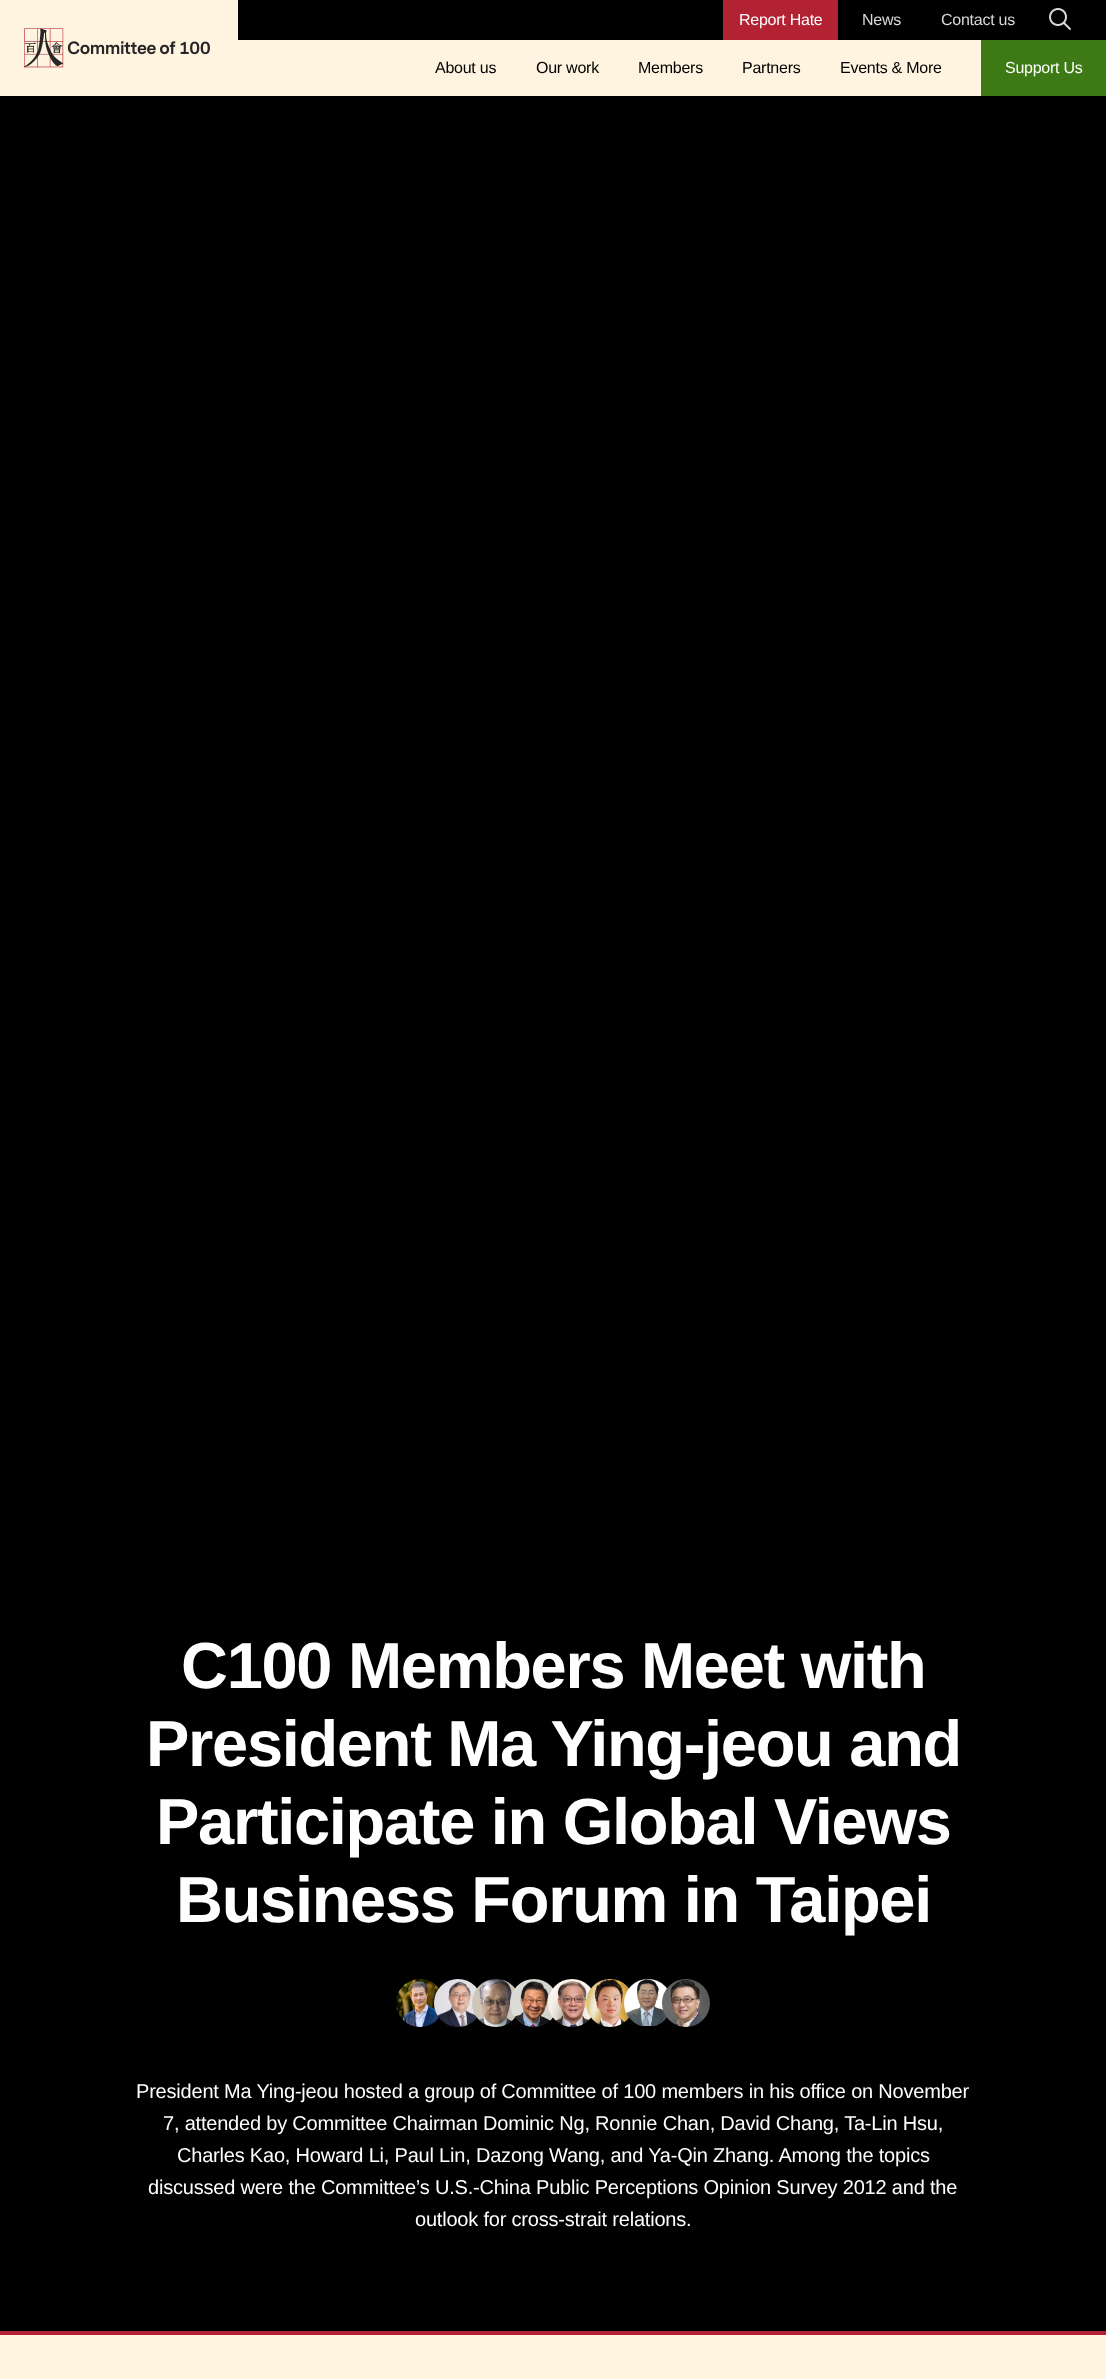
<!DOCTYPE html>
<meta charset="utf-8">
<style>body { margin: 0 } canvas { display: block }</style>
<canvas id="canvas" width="1106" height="2379"></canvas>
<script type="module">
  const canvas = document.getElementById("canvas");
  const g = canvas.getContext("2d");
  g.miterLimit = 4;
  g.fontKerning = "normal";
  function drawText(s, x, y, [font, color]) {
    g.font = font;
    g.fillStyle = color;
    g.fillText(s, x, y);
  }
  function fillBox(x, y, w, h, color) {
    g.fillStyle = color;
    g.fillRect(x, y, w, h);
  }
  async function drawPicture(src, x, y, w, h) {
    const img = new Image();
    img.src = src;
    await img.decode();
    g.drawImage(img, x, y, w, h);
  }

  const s1 = ["16px Liberation Sans", "#FFFFFF"];
  const s2 = ["16px Liberation Sans", "#D9D9D9"];
  const s3 = ["16px Liberation Sans", "#000000"];
  const s4 = ["bold 65px Liberation Sans", "#FFFFFF"];
  const s5 = ["20px Liberation Sans", "#FFFFFF"];

  fillBox(0, 0, 1106, 2379, "#FFF4E0");
  await drawPicture("pic1.png", 24, 28, 186, 40);
  fillBox(238, 0, 868, 40, "#000000");
  fillBox(723, 0, 115, 40, "#B22233");
  g.letterSpacing = "-0.25px";
  drawText("Report Hate", 739, 25, s1);
  drawText("News", 862, 25, s2);
  drawText("Contact us", 941, 25, s2);
  await drawPicture("pic2.png", 1049, 8, 22, 22);
  drawText("About us", 435, 73, s3);
  drawText("Our work", 536, 73, s3);
  drawText("Members", 638, 73, s3);
  drawText("Partners", 742, 73, s3);
  drawText("Events & More", 840, 73, s3);
  fillBox(981, 40, 125, 56, "#3D7A16");
  drawText("Support Us", 1005, 73, s1);
  fillBox(0, 96, 1106, 2235, "#000000");
  g.letterSpacing = "-1.3px";
  drawText("C100 Members Meet with", 181, 1688, s4);
  drawText("President Ma Ying-jeou and", 146, 1766, s4);
  drawText("Participate in Global Views", 156, 1844, s4);
  drawText("Business Forum in Taipei", 176, 1922, s4);
  await drawPicture("pic3.png", 396, 1979, 44, 48);
  await drawPicture("pic4.png", 434, 1979, 44, 48);
  await drawPicture("pic5.png", 472, 1979, 44, 48);
  await drawPicture("pic6.png", 510, 1979, 44, 48);
  await drawPicture("pic7.png", 548, 1979, 44, 48);
  await drawPicture("pic8.png", 586, 1979, 44, 48);
  await drawPicture("pic9.png", 624, 1979, 44, 47);
  await drawPicture("pic10.png", 662, 1979, 48, 48);
  g.letterSpacing = "-0.2px";
  drawText("President Ma Ying-jeou hosted a group of Committee of 100 members in his office on November", 136, 2098, s5);
  drawText("7, attended by Committee Chairman Dominic Ng, Ronnie Chan, David Chang, Ta-Lin Hsu,", 163, 2130, s5);
  drawText("Charles Kao, Howard Li, Paul Lin, Dazong Wang, and Ya-Qin Zhang. Among the topics", 177, 2162, s5);
  drawText("discussed were the Committee’s U.S.-China Public Perceptions Opinion Survey 2012 and the", 148, 2194, s5);
  drawText("outlook for cross-strait relations.", 415, 2226, s5);
  fillBox(0, 2331, 1106, 4, "#B22233");
</script>
